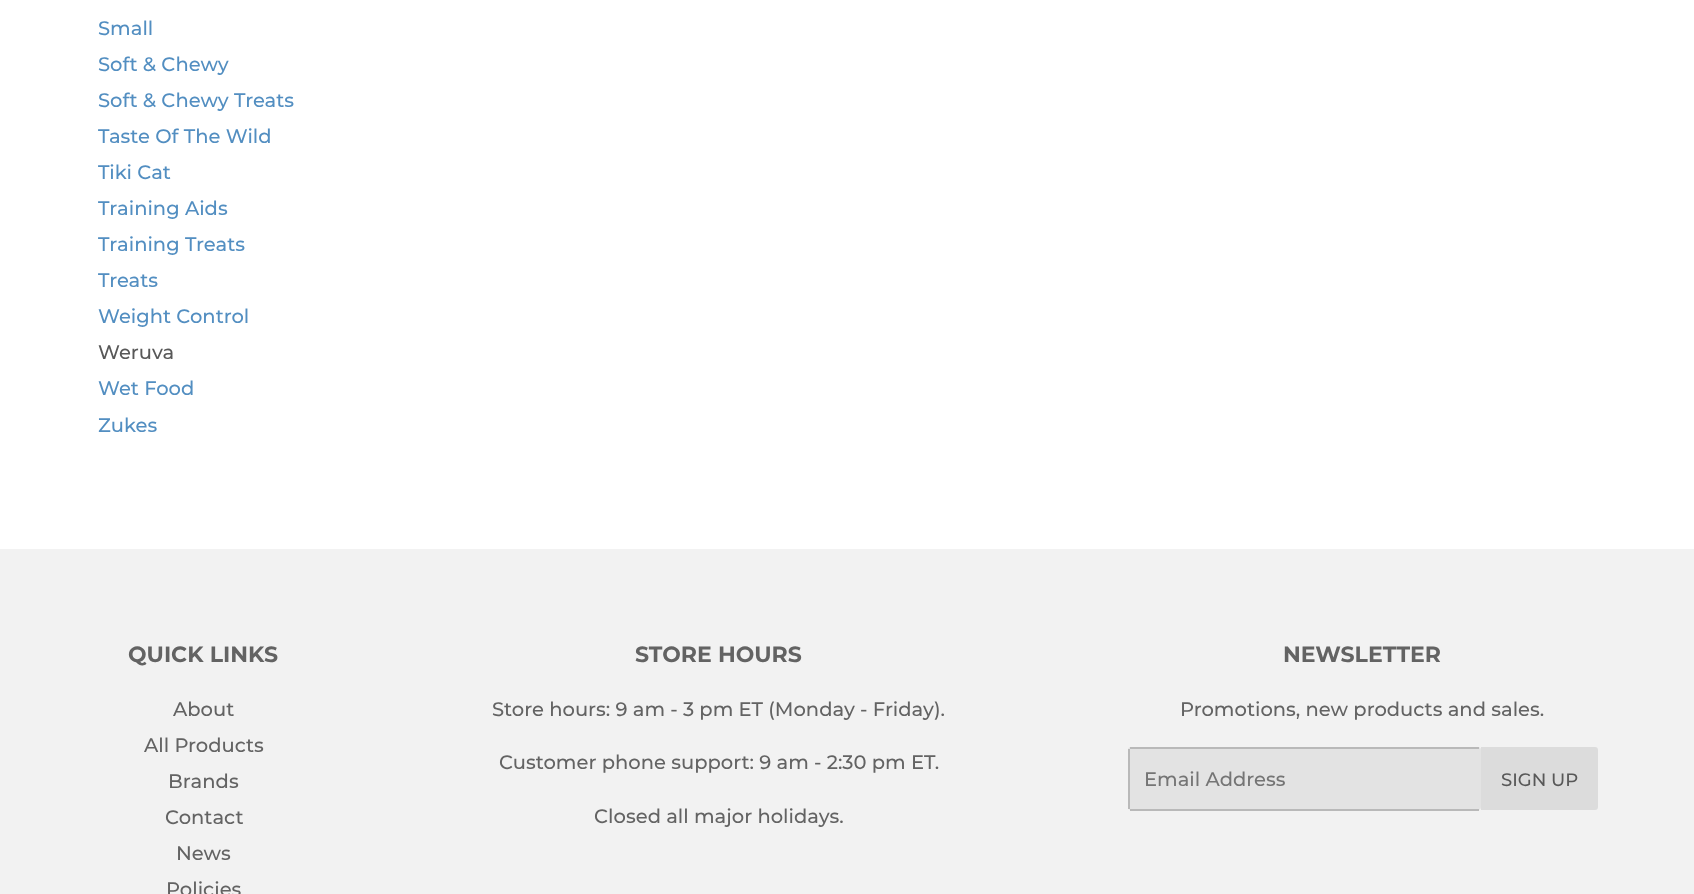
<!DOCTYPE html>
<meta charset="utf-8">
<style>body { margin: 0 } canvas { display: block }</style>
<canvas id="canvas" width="1694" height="894"></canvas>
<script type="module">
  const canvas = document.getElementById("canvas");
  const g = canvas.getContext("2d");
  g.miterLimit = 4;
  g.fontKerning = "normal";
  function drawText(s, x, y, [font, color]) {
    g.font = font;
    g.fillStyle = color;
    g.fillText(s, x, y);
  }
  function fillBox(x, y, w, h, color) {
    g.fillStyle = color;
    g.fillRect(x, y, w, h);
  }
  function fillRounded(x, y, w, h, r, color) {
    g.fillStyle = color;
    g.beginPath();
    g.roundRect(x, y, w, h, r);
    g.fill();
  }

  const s1 = ["500 19.5px Montserrat", "#528EC1"];
  const s2 = ["500 19.5px Montserrat", "#585858"];
  const s3 = ["bold 22px Montserrat", "#636363"];
  const s4 = ["500 19.5px Montserrat", "#636363"];
  const s5 = ["500 19.5px Montserrat", "#757575"];
  const s6 = ["500 18px Montserrat", "#585858"];

  fillBox(0, 0, 1694, 894, "#FFFFFF");
  drawText("Small", 98, 35, s1);
  drawText("Soft & Chewy", 98, 71, s1);
  drawText("Soft & Chewy Treats", 98, 107, s1);
  drawText("Taste Of The Wild", 98, 143, s1);
  drawText("Tiki Cat", 98, 179, s1);
  drawText("Training Aids", 98, 215, s1);
  drawText("Training Treats", 98, 251, s1);
  drawText("Treats", 98, 287, s1);
  drawText("Weight Control", 98, 323, s1);
  drawText("Weruva", 98, 359, s2);
  drawText("Wet Food", 98, 395, s1);
  drawText("Zukes", 98, 432, s1);
  fillBox(0, 549, 1694, 345, "#F2F2F2");
  drawText("QUICK LINKS", 128, 662, s3);
  drawText("About", 173, 716, s4);
  drawText("All Products", 144, 752, s4);
  drawText("Brands", 168, 788, s4);
  drawText("Contact", 165, 824, s4);
  drawText("News", 176, 860, s4);
  drawText("Policies", 166, 896, s4);
  drawText("STORE HOURS", 635, 662, s3);
  drawText("Store hours: 9 am - 3 pm ET (Monday - Friday).", 492, 716, s4);
  drawText("Customer phone support: 9 am - 2:30 pm ET.", 499, 769, s4);
  drawText("Closed all major holidays.", 594, 823, s4);
  drawText("NEWSLETTER", 1283, 662, s3);
  drawText("Promotions, new products and sales.", 1180, 716, s4);
  fillRounded(1128, 747, 353, 63, 3, "#E3E3E3");
  fillBox(1130, 747, 349, 2, "#B9B9B9");
  fillBox(1130, 809, 349, 2, "#B9B9B9");
  fillBox(1128, 749, 2, 60, "#B9B9B9");
  drawText("Email Address", 1144, 786, s5);
  g.fillStyle = "#DCDCDC";
  g.beginPath();
  g.roundRect(1481, 747, 117, 63, [0, 3, 3, 0]);
  g.fill();
  drawText("SIGN UP", 1501, 786, s6);
</script>
